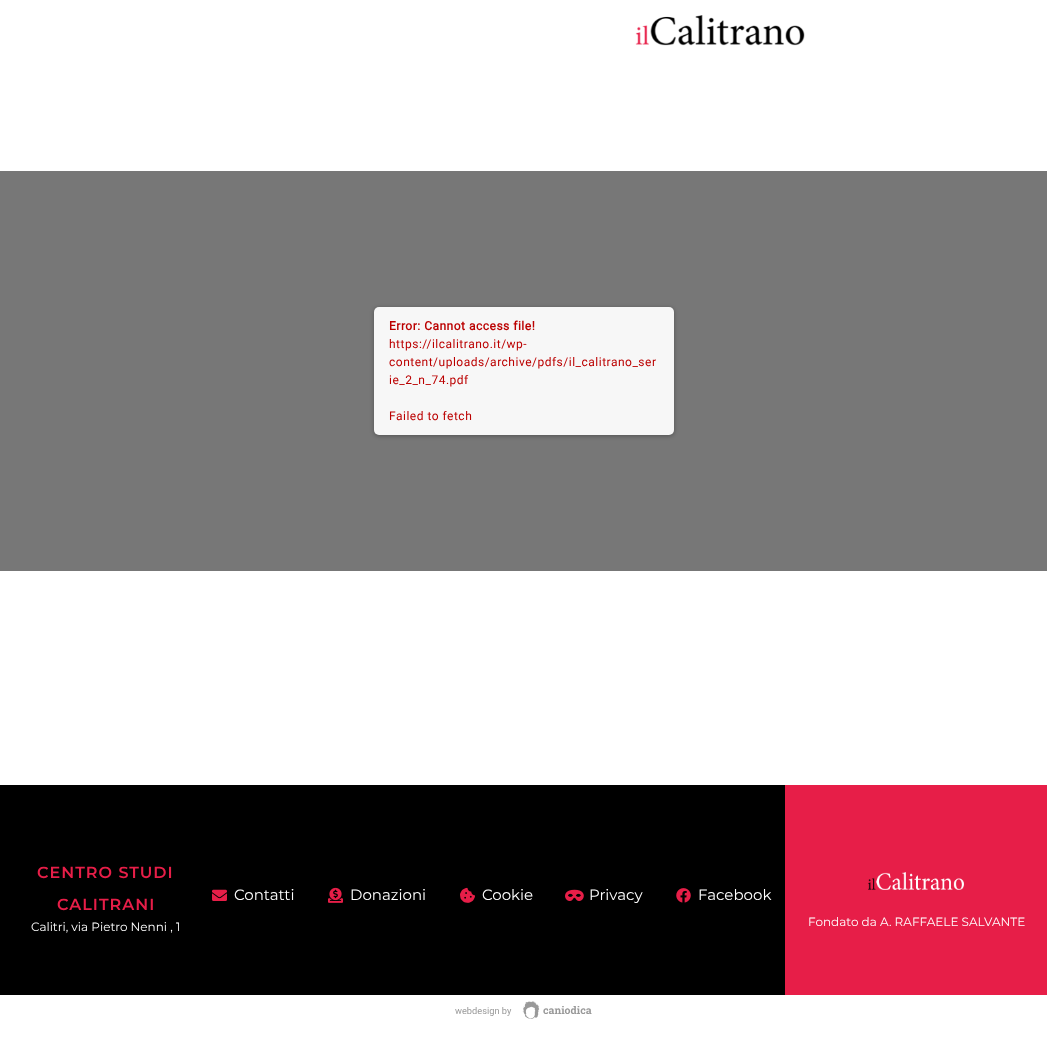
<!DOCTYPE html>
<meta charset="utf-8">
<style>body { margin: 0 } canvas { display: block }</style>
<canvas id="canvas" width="1047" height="1047"></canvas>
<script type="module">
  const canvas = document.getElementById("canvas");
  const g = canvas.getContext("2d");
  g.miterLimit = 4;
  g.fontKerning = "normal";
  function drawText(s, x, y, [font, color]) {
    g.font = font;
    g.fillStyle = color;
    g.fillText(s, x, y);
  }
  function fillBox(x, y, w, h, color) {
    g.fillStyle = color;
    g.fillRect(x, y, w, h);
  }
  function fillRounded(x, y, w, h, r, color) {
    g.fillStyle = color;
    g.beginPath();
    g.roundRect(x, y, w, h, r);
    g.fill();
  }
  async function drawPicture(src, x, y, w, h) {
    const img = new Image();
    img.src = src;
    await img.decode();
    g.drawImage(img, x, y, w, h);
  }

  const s1 = ["bold 12px Roboto", "#BB0000"];
  const s2 = ["12px Roboto", "#BB0000"];
  const s3 = ["600 16px Montserrat", "#E71E48"];
  const s4 = ["12px Montserrat", "#FFFFFF"];
  const s5 = ["15px Montserrat", "#FFFFFF"];
  const s6 = ["9.25px Roboto", "#999999"];
  const s7 = ["bold 10.5px Roboto Slab", "#999999"];

  fillBox(0, 0, 1047, 1047, "#FFFFFF");
  await drawPicture("pic1.png", 635, 15, 170, 31);
  fillBox(0, 171, 1047, 400, "#777777");
  g.fillStyle = "rgba(0, 0, 0, 0.3)";
  g.filter = "blur(2px)";
  g.beginPath();
  g.roundRect(374, 308, 300, 128, 5);
  g.fill();
  g.filter = "none";
  fillRounded(374, 307, 300, 128, 5, "#F7F7F7");
  g.letterSpacing = "0.5px";
  drawText("Error: Cannot access file!", 389, 330, s1);
  drawText("https://ilcalitrano.it/wp-", 389, 348, s2);
  drawText("content/uploads/archive/pdfs/il_calitrano_ser", 389, 366, s2);
  drawText("ie_2_n_74.pdf", 389, 384, s2);
  drawText("Failed to fetch", 389, 420, s2);
  fillBox(0, 785, 785, 210, "#000000");
  g.letterSpacing = "1px";
  drawText("CENTRO STUDI", 37, 878, s3);
  drawText("CALITRANI", 57, 910, s3);
  g.letterSpacing = "0px";
  drawText("Calitri, via Pietro Nenni , 1", 31, 931, s4);
  await drawPicture("pic2.png", 212, 889, 15, 12);
  drawText("Contatti", 234, 900, s5);
  await drawPicture("pic3.png", 328, 887, 15, 16);
  drawText("Donazioni", 350, 900, s5);
  await drawPicture("pic4.png", 460, 887, 15, 16);
  drawText("Cookie", 482, 900, s5);
  await drawPicture("pic5.png", 565, 889, 19, 12);
  drawText("Privacy", 589, 900, s5);
  await drawPicture("pic6.png", 676, 888, 15, 15);
  drawText("Facebook", 698, 900, s5);
  fillBox(785, 785, 262, 210, "#E71E48");
  await drawPicture("pic7.png", 868, 872, 96, 18);
  drawText("Fondato da A. RAFFAELE SALVANTE", 808, 926, s4);
  drawText("webdesign by", 455, 1014, s6);
  await drawPicture("pic8.png", 522, 1001, 18, 18);
  drawText("caniodica", 543, 1014, s7);
</script>
